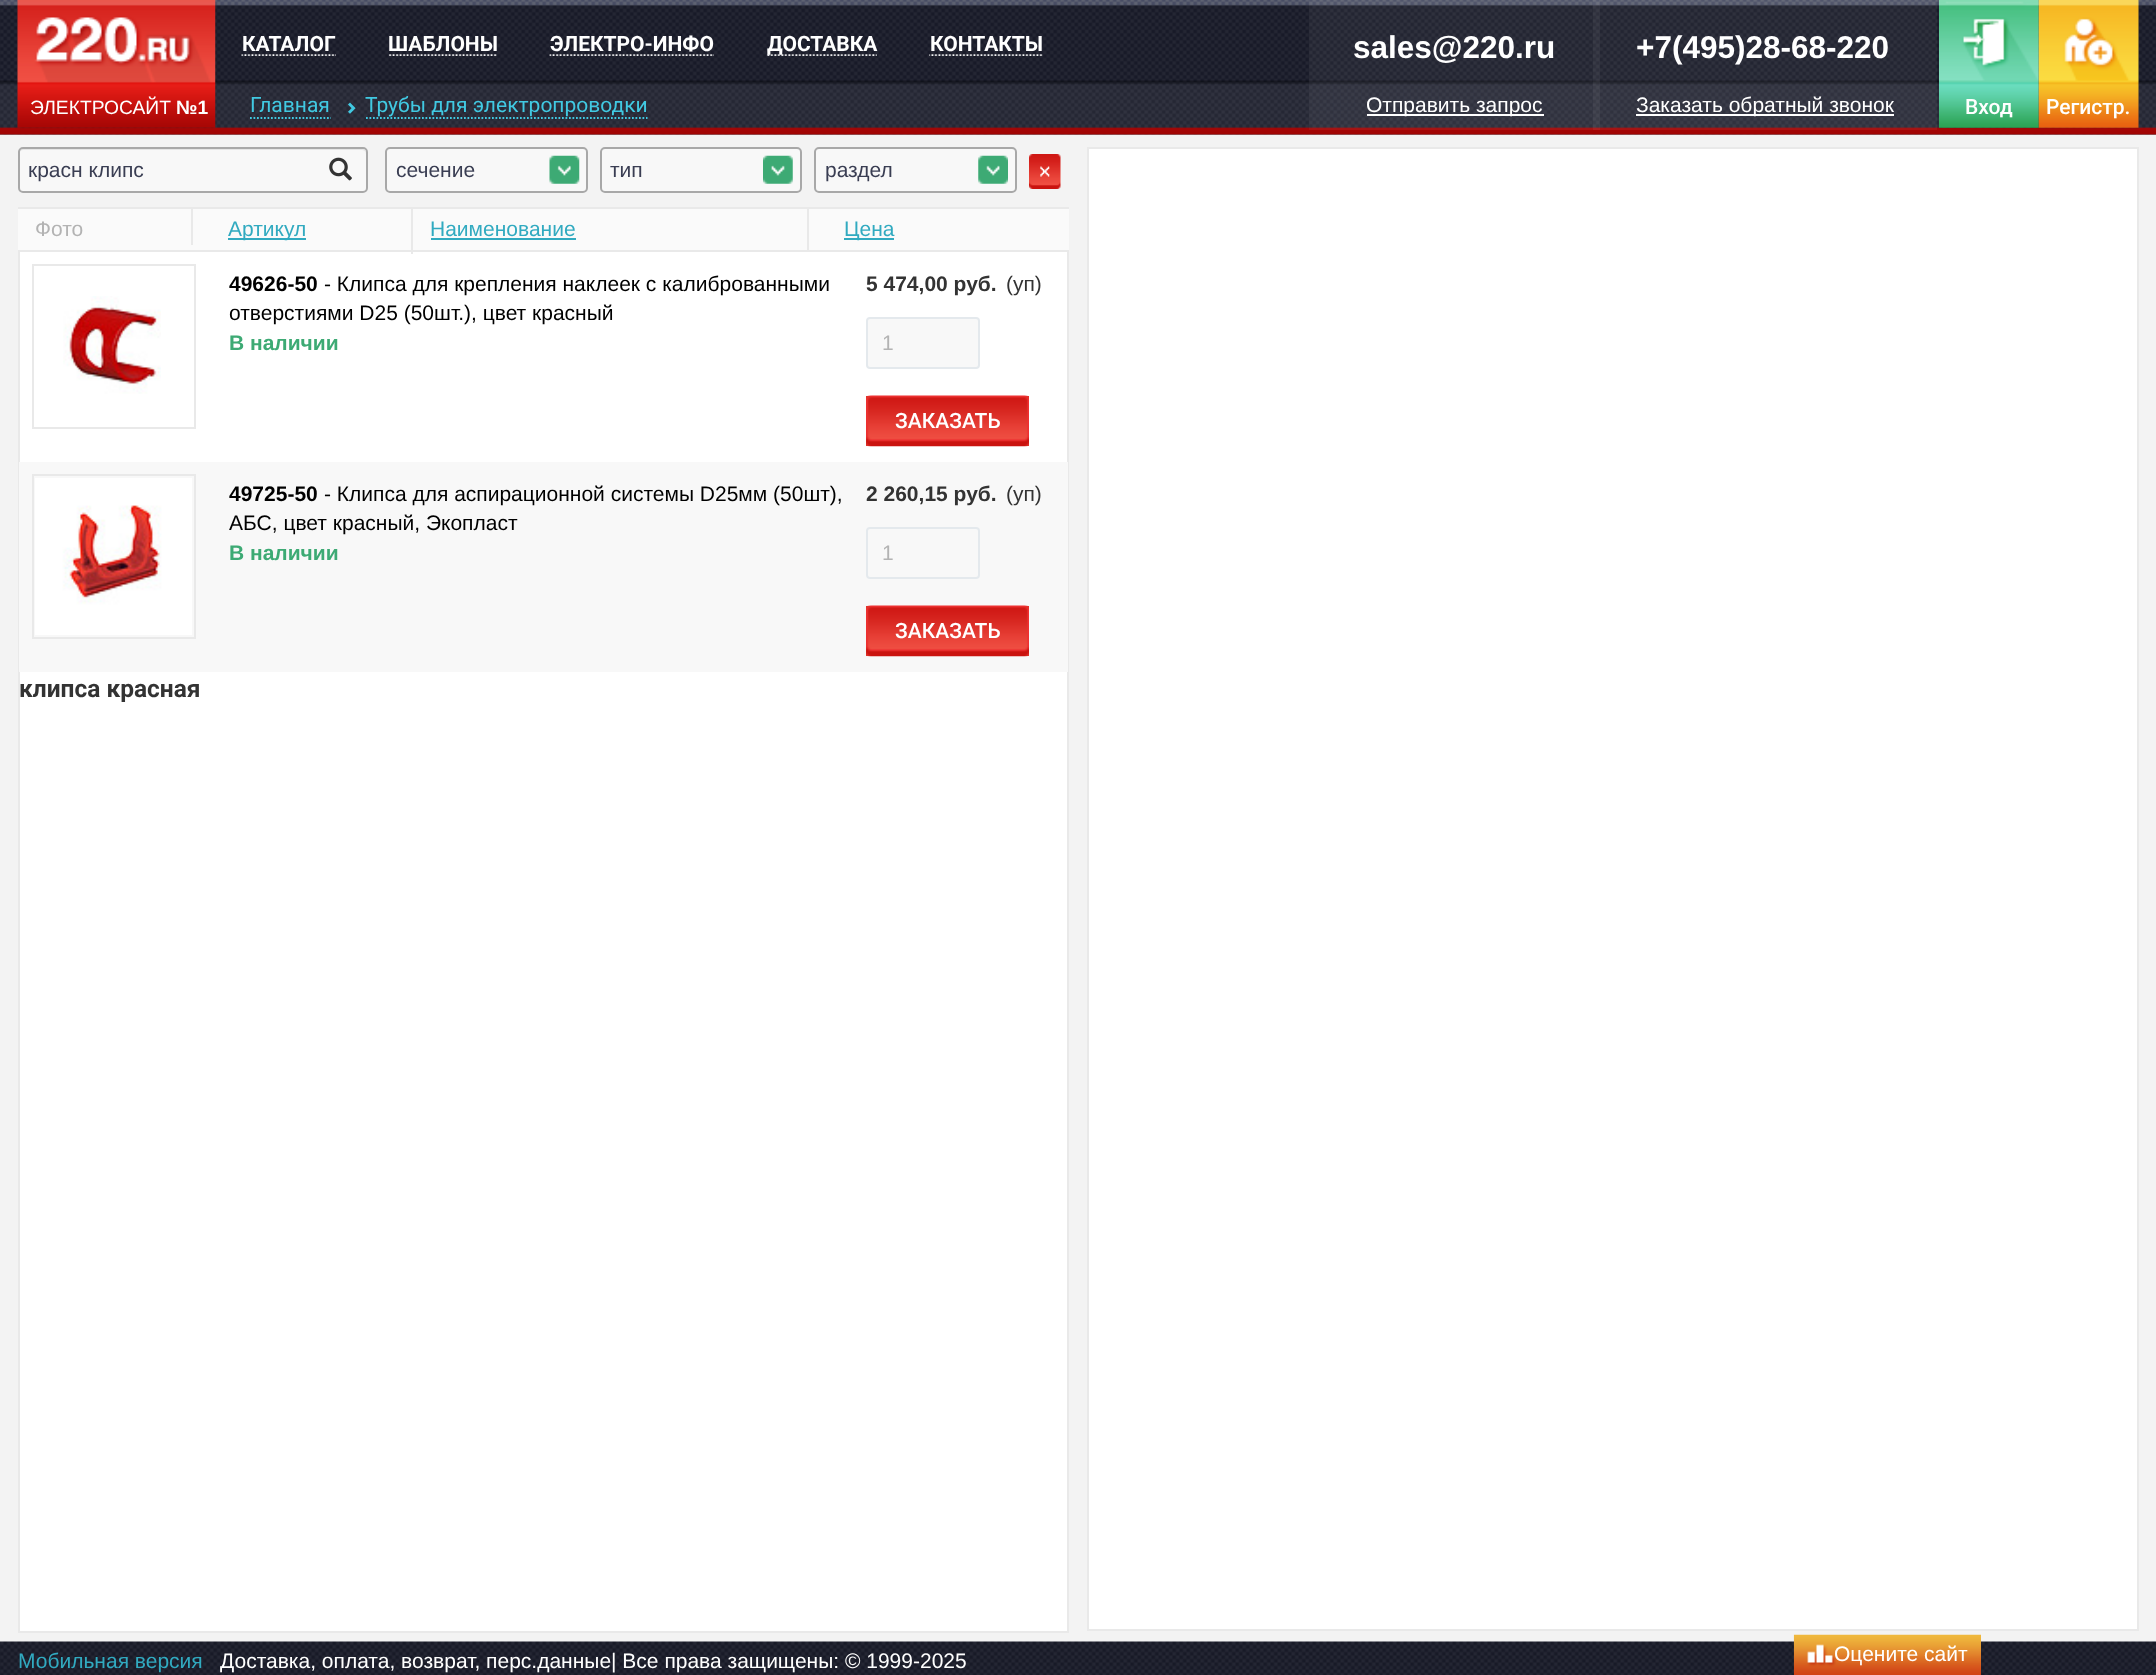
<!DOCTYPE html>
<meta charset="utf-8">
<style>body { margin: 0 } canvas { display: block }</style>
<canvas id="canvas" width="2156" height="1675"></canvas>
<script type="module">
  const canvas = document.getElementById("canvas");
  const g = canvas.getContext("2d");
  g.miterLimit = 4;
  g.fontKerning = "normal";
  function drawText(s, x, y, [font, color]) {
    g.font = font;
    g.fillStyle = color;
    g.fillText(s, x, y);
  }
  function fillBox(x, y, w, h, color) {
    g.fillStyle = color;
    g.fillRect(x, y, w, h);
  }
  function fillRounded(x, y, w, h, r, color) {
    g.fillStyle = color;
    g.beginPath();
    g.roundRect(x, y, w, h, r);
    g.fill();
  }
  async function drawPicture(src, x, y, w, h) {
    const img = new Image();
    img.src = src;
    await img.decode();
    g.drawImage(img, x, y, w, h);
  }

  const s1 = ["19.25px Liberation Sans", "#FFFFFF"];
  const s2 = ["bold 19.25px Liberation Sans", "#FFFFFF"];
  const s3 = ["bold 21px Roboto", "#FFFFFF"];
  const s4 = ["bold 31.5px Liberation Sans", "#FFFFFF"];
  const s5 = ["21px Liberation Sans", "#FFFFFF"];
  const s6 = ["21px Roboto", "#41C9E2"];
  const s7 = ["500 21px Roboto", "#FFFFFF"];
  const s8 = ["21px Liberation Sans", "#3A3E53"];
  const s9 = ["21px Liberation Sans", "#B3B3B3"];
  const s10 = ["21px Liberation Sans", "#31AAC0"];
  const s11 = ["bold 21px Liberation Sans", "#000000"];
  const s12 = ["21px Liberation Sans", "#000000"];
  const s13 = ["bold 21px Liberation Sans", "#3DAA74"];
  const s14 = ["bold 21px Liberation Sans", "#333333"];
  const s15 = ["21px Liberation Sans", "#333333"];
  const s16 = ["bold 24.5px Roboto", "#333333"];

  fillBox(0, 0, 2156, 1675, "#F3F3F3");
  await drawPicture("pic1.png", 0, 0, 2156, 135);
  await drawPicture("pic2.png", 17, 0, 199, 128);
  drawText("ЭЛЕКТРОСАЙТ", 30, 114, s1);
  drawText("№1", 176, 114, s2);
  await drawPicture("pic3.png", 241, 54, 95, 2);
  drawText("КАТАЛОГ", 242, 51, s3);
  await drawPicture("pic4.png", 388, 54, 109, 2);
  drawText("ШАБЛОНЫ", 388, 51, s3);
  await drawPicture("pic5.png", 549, 54, 165, 2);
  drawText("ЭЛЕКТРО-ИНФО", 550, 51, s3);
  await drawPicture("pic6.png", 766, 54, 111, 2);
  drawText("ДОСТАВКА", 767, 51, s3);
  await drawPicture("pic7.png", 929, 54, 114, 2);
  drawText("КОНТАКТЫ", 930, 51, s3);
  fillBox(1309, 0, 291, 130, "rgba(255, 255, 255, 0.05)");
  drawText("sales@220.ru", 1353, 58, s4);
  fillBox(1367, 114, 177, 2, "#FFFFFF");
  drawText("Отправить запрос", 1366, 112, s5);
  fillBox(1593, 0, 344, 130, "rgba(255, 255, 255, 0.05)");
  drawText("+7(495)28-68-220", 1636, 58, s4);
  fillBox(1636, 114, 258, 2, "#FFFFFF");
  drawText("Заказать обратный звонок", 1636, 112, s5);
  drawText("Главная", 250, 112, s6);
  g.beginPath();
  g.moveTo(250, 118);
  g.lineTo(331, 118);
  g.strokeStyle = "#41C9E2";
  g.lineWidth = 1.8;
  g.setLineDash([1.75, 1.75]);
  g.stroke();
  await drawPicture("pic8.png", 348, 102, 8, 12);
  drawText("Трубы для электропроводки", 365, 112, s6);
  g.beginPath();
  g.moveTo(366, 118);
  g.lineTo(647.5, 118);
  g.stroke();
  await drawPicture("pic9.png", 1939, 0, 100, 128);
  drawText("Вход", 1965, 114, s7);
  await drawPicture("pic10.png", 2038, 0, 101, 128);
  drawText("Регистр.", 2046, 114, s7);
  fillRounded(18, 147, 350, 46, 5, "#F8F8F8");
  g.fillStyle = "#E5E5E5";
  g.beginPath();
  g.moveTo(23, 150);
  g.lineTo(362, 150);
  g.bezierCurveTo(364, 150, 366, 152, 366, 154);
  g.lineTo(366, 153);
  g.bezierCurveTo(366, 151, 364, 149, 362, 149);
  g.lineTo(23, 149);
  g.bezierCurveTo(21, 149, 19, 151, 19, 153);
  g.lineTo(19, 154);
  g.bezierCurveTo(19, 152, 21, 150, 23, 150);
  g.closePath();
  g.fill();
  g.beginPath();
  g.roundRect(19, 148, 348, 44, 4);
  g.strokeStyle = "#A8A8A8";
  g.lineWidth = 2;
  g.setLineDash([]);
  g.stroke();
  drawText("красн клипс", 28, 177, s8);
  await drawPicture("pic11.png", 329, 157, 23, 24);
  fillRounded(385, 147, 203, 46, 5, "#F8F8F8");
  await drawPicture("pic12.png", 549, 155, 31, 29);
  g.beginPath();
  g.roundRect(386, 148, 201, 44, 4);
  g.stroke();
  drawText("сечение", 396, 177, s8);
  fillRounded(600, 147, 202, 46, 5, "#F8F8F8");
  await drawPicture("pic13.png", 763, 155, 30, 29);
  g.beginPath();
  g.roundRect(601, 148, 200, 44, 4);
  g.stroke();
  drawText("тип", 610, 177, s8);
  fillRounded(814, 147, 203, 46, 5, "#F8F8F8");
  await drawPicture("pic14.png", 978, 155, 30, 29);
  g.beginPath();
  g.roundRect(815, 148, 201, 44, 4);
  g.stroke();
  drawText("раздел", 825, 177, s8);
  await drawPicture("pic15.png", 1029, 154, 32, 35);
  fillBox(18, 209, 1051, 41, "#FAFAFA");
  fillBox(18, 207, 1051, 2, "#E9E9E9");
  fillBox(191, 208, 2, 37, "#E9E9E9");
  drawText("Фото", 35, 236, s9);
  g.fillStyle = "#FFFFFF";
  g.beginPath();
  g.rect(19, 251, 1049, 1381);
  g.fill();
  g.strokeStyle = "#E9E9E9";
  g.stroke();
  fillBox(411, 208, 2, 46, "#E9E9E9");
  fillBox(228, 238, 78, 2, "#31AAC0");
  drawText("Артикул", 228, 236, s10);
  drawText("Наименование", 430, 236, s10);
  fillBox(431, 238, 145, 2, "#31AAC0");
  fillBox(807, 208, 2, 44, "#E9E9E9");
  fillBox(844, 238, 50, 2, "#31AAC0");
  drawText("Цена", 844, 236, s10);
  g.strokeRect(33, 265, 162, 163);
  await drawPicture("pic16.png", 63, 296, 98, 98);
  drawText("49626-50", 229, 291, s11);
  drawText("- Клипса для крепления наклеек с калиброванными", 324, 291, s12);
  drawText("отверстиями D25 (50шт.), цвет красный", 229, 320, s12);
  drawText("В наличии", 229, 350, s13);
  drawText("5 474,00 руб.", 866, 291, s14);
  drawText("(уп)", 1006, 291, s15);
  g.fillStyle = "#F8F8F8";
  g.beginPath();
  g.roundRect(867, 318, 112, 50, 3);
  g.fill();
  g.strokeStyle = "#E4E9ED";
  g.stroke();
  drawText("1", 882, 350, s9);
  fillBox(866, 396, 163, 50, "#E1362E");
  await drawPicture("pic17.png", 866, 395, 163, 52);
  drawText("ЗАКАЗАТЬ", 895, 428, s7);
  fillBox(19, 462, 1049, 210, "#F8F8F8");
  g.strokeStyle = "#E9E9E9";
  g.strokeRect(33, 475, 162, 163);
  await drawPicture("pic18.png", 35, 478, 157, 157);
  drawText("49725-50", 229, 501, s11);
  drawText("- Клипса для аспирационной системы D25мм (50шт),", 324, 501, s12);
  drawText("АБС, цвет красный, Экопласт", 229, 530, s12);
  drawText("В наличии", 229, 560, s13);
  drawText("2 260,15 руб.", 866, 501, s14);
  drawText("(уп)", 1006, 501, s15);
  g.beginPath();
  g.roundRect(867, 528, 112, 50, 3);
  g.strokeStyle = "#E4E9ED";
  g.stroke();
  drawText("1", 882, 560, s9);
  fillBox(866, 606, 163, 50, "#E1362E");
  await drawPicture("pic19.png", 866, 605, 163, 52);
  drawText("ЗАКАЗАТЬ", 895, 638, s7);
  drawText("клипса красная", 19, 697, s16);
  g.fillStyle = "#FFFFFF";
  g.beginPath();
  g.rect(1088, 148, 1050, 1482);
  g.fill();
  g.strokeStyle = "#E9E9E9";
  g.stroke();
  await drawPicture("pic20.png", 0, 1641, 2156, 34);
  drawText("Мобильная версия", 18, 1668, s10);
  drawText("Доставка, оплата, возврат, перс.данные| Все права защищены: © 1999-2025", 220, 1668, s5);
  await drawPicture("pic21.png", 1793, 1634, 188, 41);
  drawText("Оцените сайт", 1834, 1661, s5);
</script>
